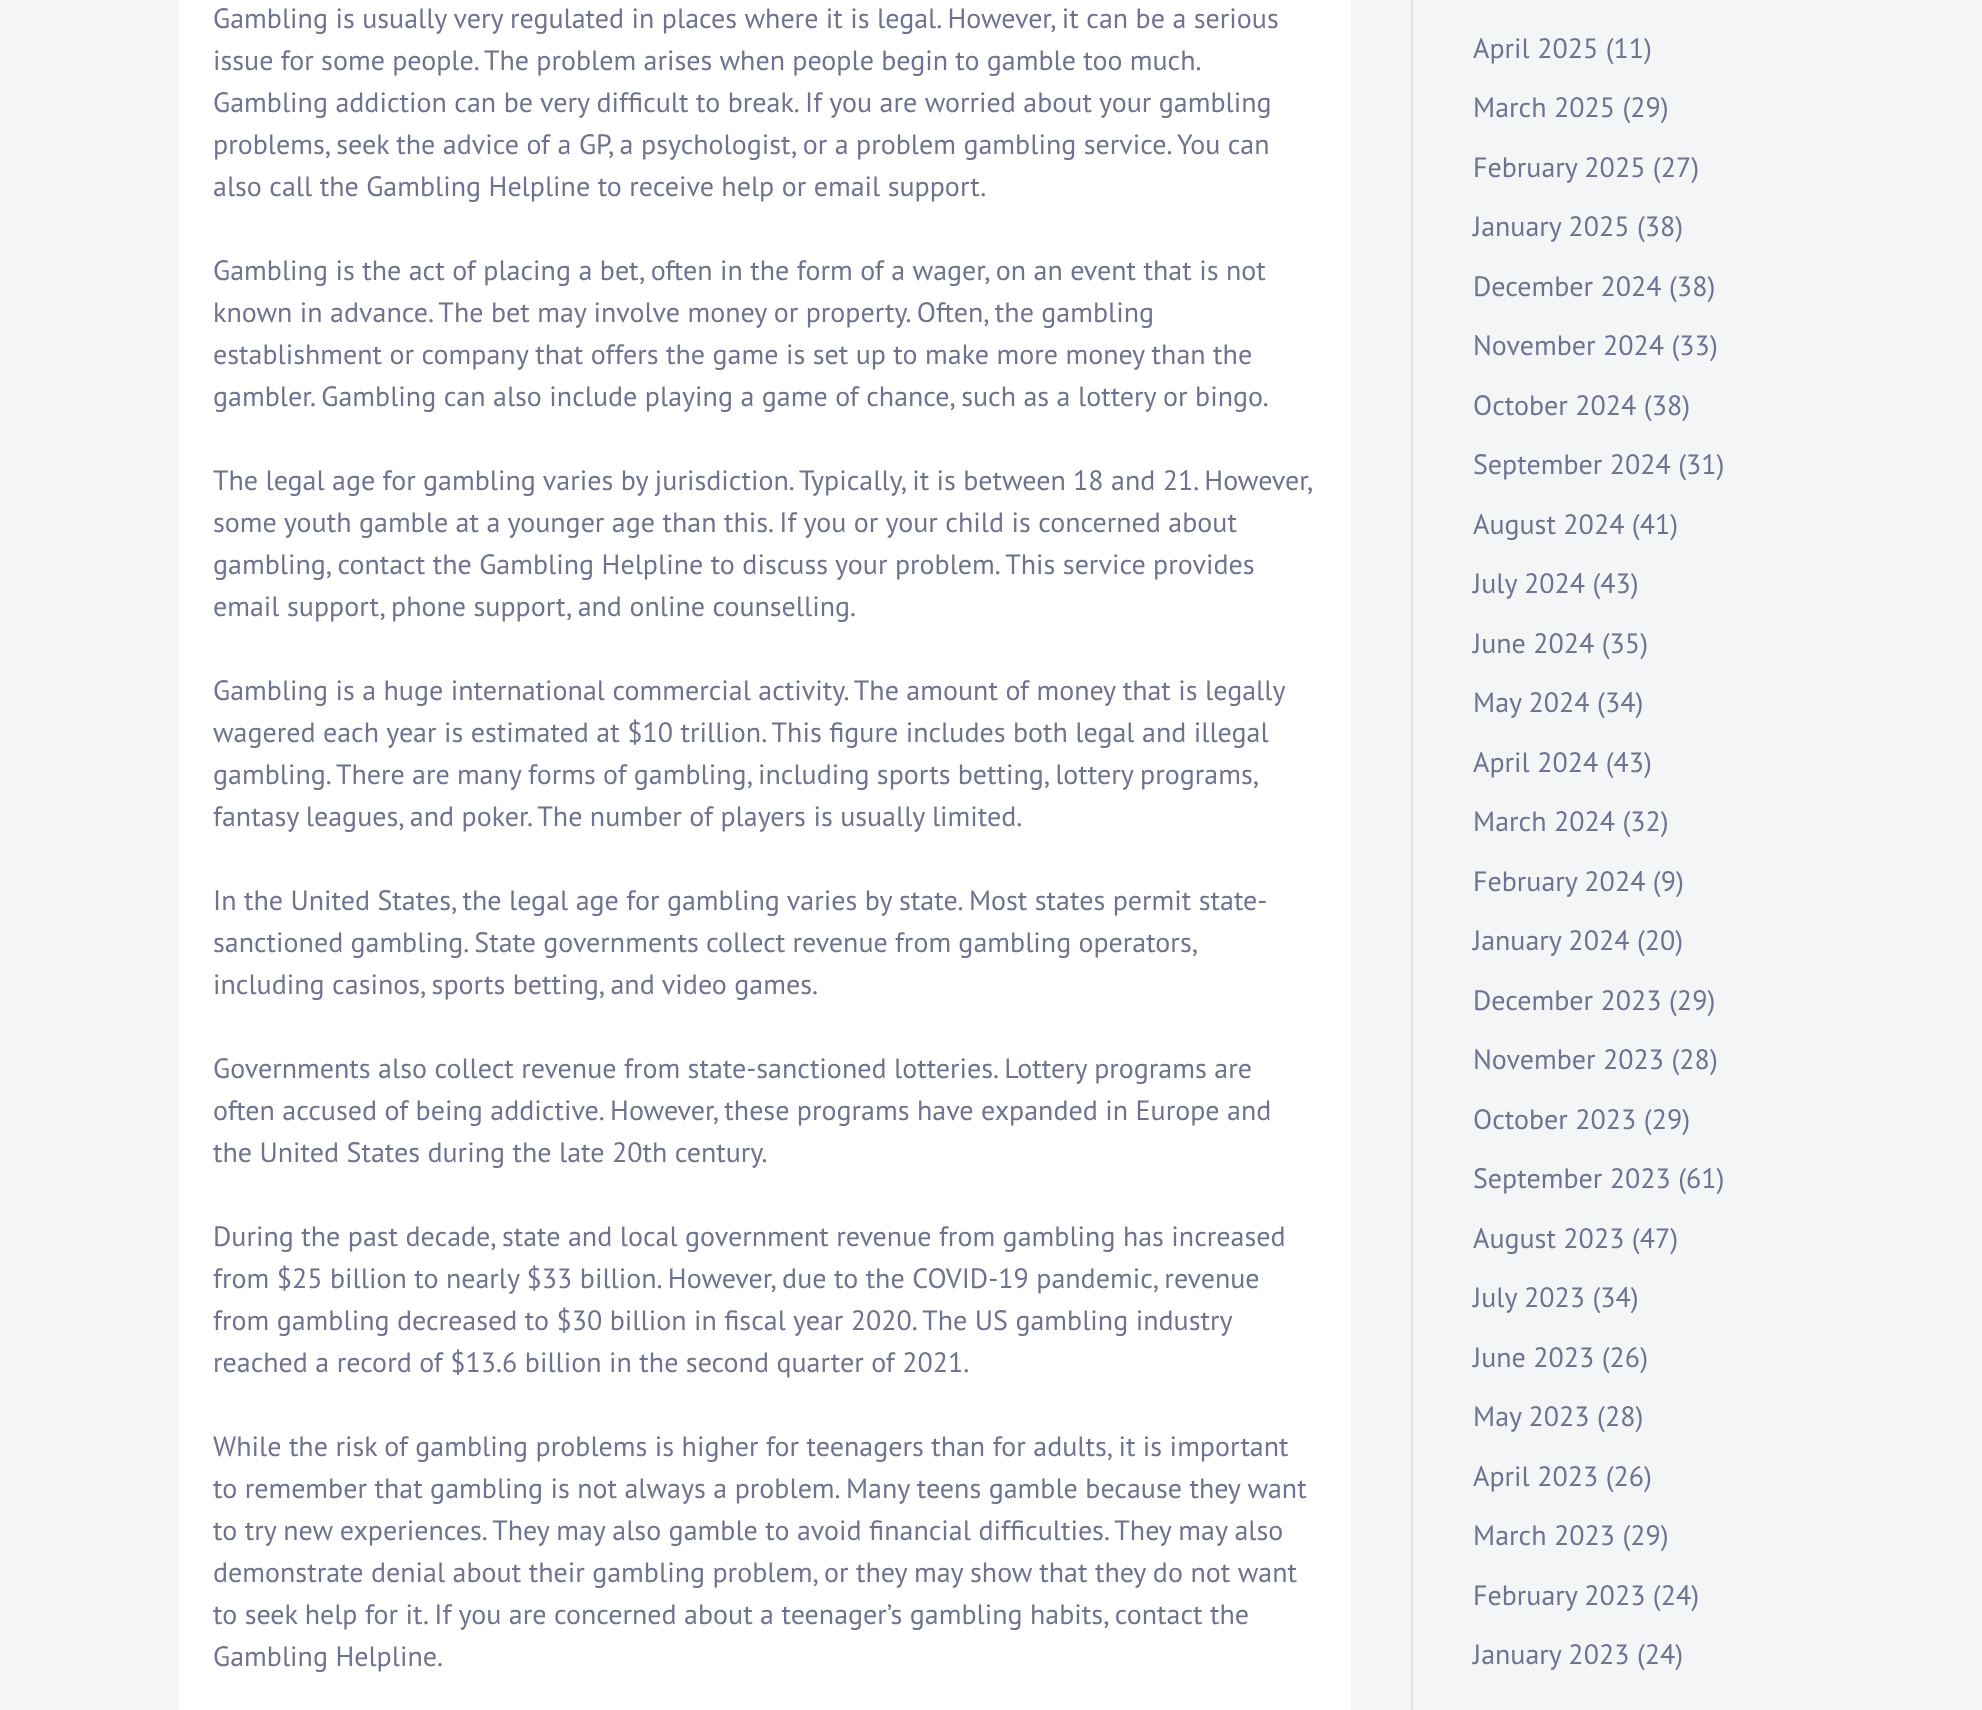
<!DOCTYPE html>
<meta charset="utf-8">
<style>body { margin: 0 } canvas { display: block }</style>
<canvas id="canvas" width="1982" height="1710"></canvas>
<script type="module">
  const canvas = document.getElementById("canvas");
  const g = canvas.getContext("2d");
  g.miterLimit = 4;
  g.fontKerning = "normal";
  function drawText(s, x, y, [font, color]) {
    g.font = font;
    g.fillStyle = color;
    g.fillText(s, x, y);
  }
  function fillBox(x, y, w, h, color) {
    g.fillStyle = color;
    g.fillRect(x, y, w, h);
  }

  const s1 = ["28px PT Sans", "#6F738F"];

  fillBox(0, 0, 1982, 1710, "#F3F5F7");
  fillBox(1411, 0, 2, 1710, "#E1E2E4");
  fillBox(179, 0, 1172, 1710, "#FFFFFF");
  drawText("Gambling is usually very regulated in places where it is legal. However, it can be a serious", 213, 28, s1);
  g.wordSpacing = "-0.2px";
  drawText("issue for some people. The problem arises when people begin to gamble too much.", 213, 70, s1);
  g.wordSpacing = "0px";
  drawText("Gambling addiction can be very difficult to break. If you are worried about your gambling", 213, 112, s1);
  drawText("problems, seek the advice of a GP, a psychologist, or a problem gambling service. You can", 213, 154, s1);
  drawText("also call the Gambling Helpline to receive help or email support.", 213, 196, s1);
  drawText("Gambling is the act of placing a bet, often in the form of a wager, on an event that is not", 213, 280, s1);
  drawText("known in advance. The bet may involve money or property. Often, the gambling", 213, 322, s1);
  drawText("establishment or company that offers the game is set up to make more money than the", 213, 364, s1);
  drawText("gambler. Gambling can also include playing a game of chance, such as a lottery or bingo.", 213, 406, s1);
  g.wordSpacing = "-0.1px";
  drawText("The legal age for gambling varies by jurisdiction. Typically, it is between 18 and 21. However,", 213, 490, s1);
  g.wordSpacing = "0px";
  drawText("some youth gamble at a younger age than this. If you or your child is concerned about", 213, 532, s1);
  drawText("gambling, contact the Gambling Helpline to discuss your problem. This service provides", 213, 574, s1);
  drawText("email support, phone support, and online counselling.", 213, 616, s1);
  drawText("Gambling is a huge international commercial activity. The amount of money that is legally", 213, 700, s1);
  drawText("wagered each year is estimated at $10 trillion. This figure includes both legal and illegal", 213, 742, s1);
  g.wordSpacing = "-0.25px";
  drawText("gambling. There are many forms of gambling, including sports betting, lottery programs,", 213, 784, s1);
  g.wordSpacing = "0px";
  drawText("fantasy leagues, and poker. The number of players is usually limited.", 213, 826, s1);
  drawText("In the United States, the legal age for gambling varies by state. Most states permit state-", 213, 910, s1);
  g.wordSpacing = "-0.25px";
  drawText("sanctioned gambling. State governments collect revenue from gambling operators,", 213, 952, s1);
  g.wordSpacing = "0px";
  drawText("including casinos, sports betting, and video games.", 213, 994, s1);
  drawText("Governments also collect revenue from state-sanctioned lotteries. Lottery programs are", 213, 1078, s1);
  drawText("often accused of being addictive. However, these programs have expanded in Europe and", 213, 1120, s1);
  drawText("the United States during the late 20th century.", 213, 1162, s1);
  drawText("During the past decade, state and local government revenue from gambling has increased", 213, 1246, s1);
  drawText("from $25 billion to nearly $33 billion. However, due to the COVID-19 pandemic, revenue", 213, 1288, s1);
  drawText("from gambling decreased to $30 billion in fiscal year 2020. The US gambling industry", 213, 1330, s1);
  drawText("reached a record of $13.6 billion in the second quarter of 2021.", 213, 1372, s1);
  drawText("While the risk of gambling problems is higher for teenagers than for adults, it is important", 213, 1456, s1);
  drawText("to remember that gambling is not always a problem. Many teens gamble because they want", 213, 1498, s1);
  drawText("to try new experiences. They may also gamble to avoid financial difficulties. They may also", 213, 1540, s1);
  drawText("demonstrate denial about their gambling problem, or they may show that they do not want", 213, 1582, s1);
  drawText("to seek help for it. If you are concerned about a teenager’s gambling habits, contact the", 213, 1624, s1);
  drawText("Gambling Helpline.", 213, 1666, s1);
  drawText("April 2025 (11)", 1473, 58, s1);
  drawText("March 2025 (29)", 1473, 117, s1);
  drawText("February 2025 (27)", 1473, 177, s1);
  drawText("January 2025 (38)", 1473, 236, s1);
  drawText("December 2024 (38)", 1473, 296, s1);
  drawText("November 2024 (33)", 1473, 355, s1);
  drawText("October 2024 (38)", 1473, 415, s1);
  drawText("September 2024 (31)", 1473, 474, s1);
  drawText("August 2024 (41)", 1473, 534, s1);
  drawText("July 2024 (43)", 1473, 593, s1);
  drawText("June 2024 (35)", 1473, 653, s1);
  drawText("May 2024 (34)", 1473, 712, s1);
  drawText("April 2024 (43)", 1473, 772, s1);
  drawText("March 2024 (32)", 1473, 831, s1);
  drawText("February 2024 (9)", 1473, 891, s1);
  drawText("January 2024 (20)", 1473, 950, s1);
  drawText("December 2023 (29)", 1473, 1010, s1);
  drawText("November 2023 (28)", 1473, 1069, s1);
  drawText("October 2023 (29)", 1473, 1129, s1);
  drawText("September 2023 (61)", 1473, 1188, s1);
  drawText("August 2023 (47)", 1473, 1248, s1);
  drawText("July 2023 (34)", 1473, 1307, s1);
  drawText("June 2023 (26)", 1473, 1367, s1);
  drawText("May 2023 (28)", 1473, 1426, s1);
  drawText("April 2023 (26)", 1473, 1486, s1);
  drawText("March 2023 (29)", 1473, 1545, s1);
  drawText("February 2023 (24)", 1473, 1605, s1);
  drawText("January 2023 (24)", 1473, 1664, s1);
</script>
